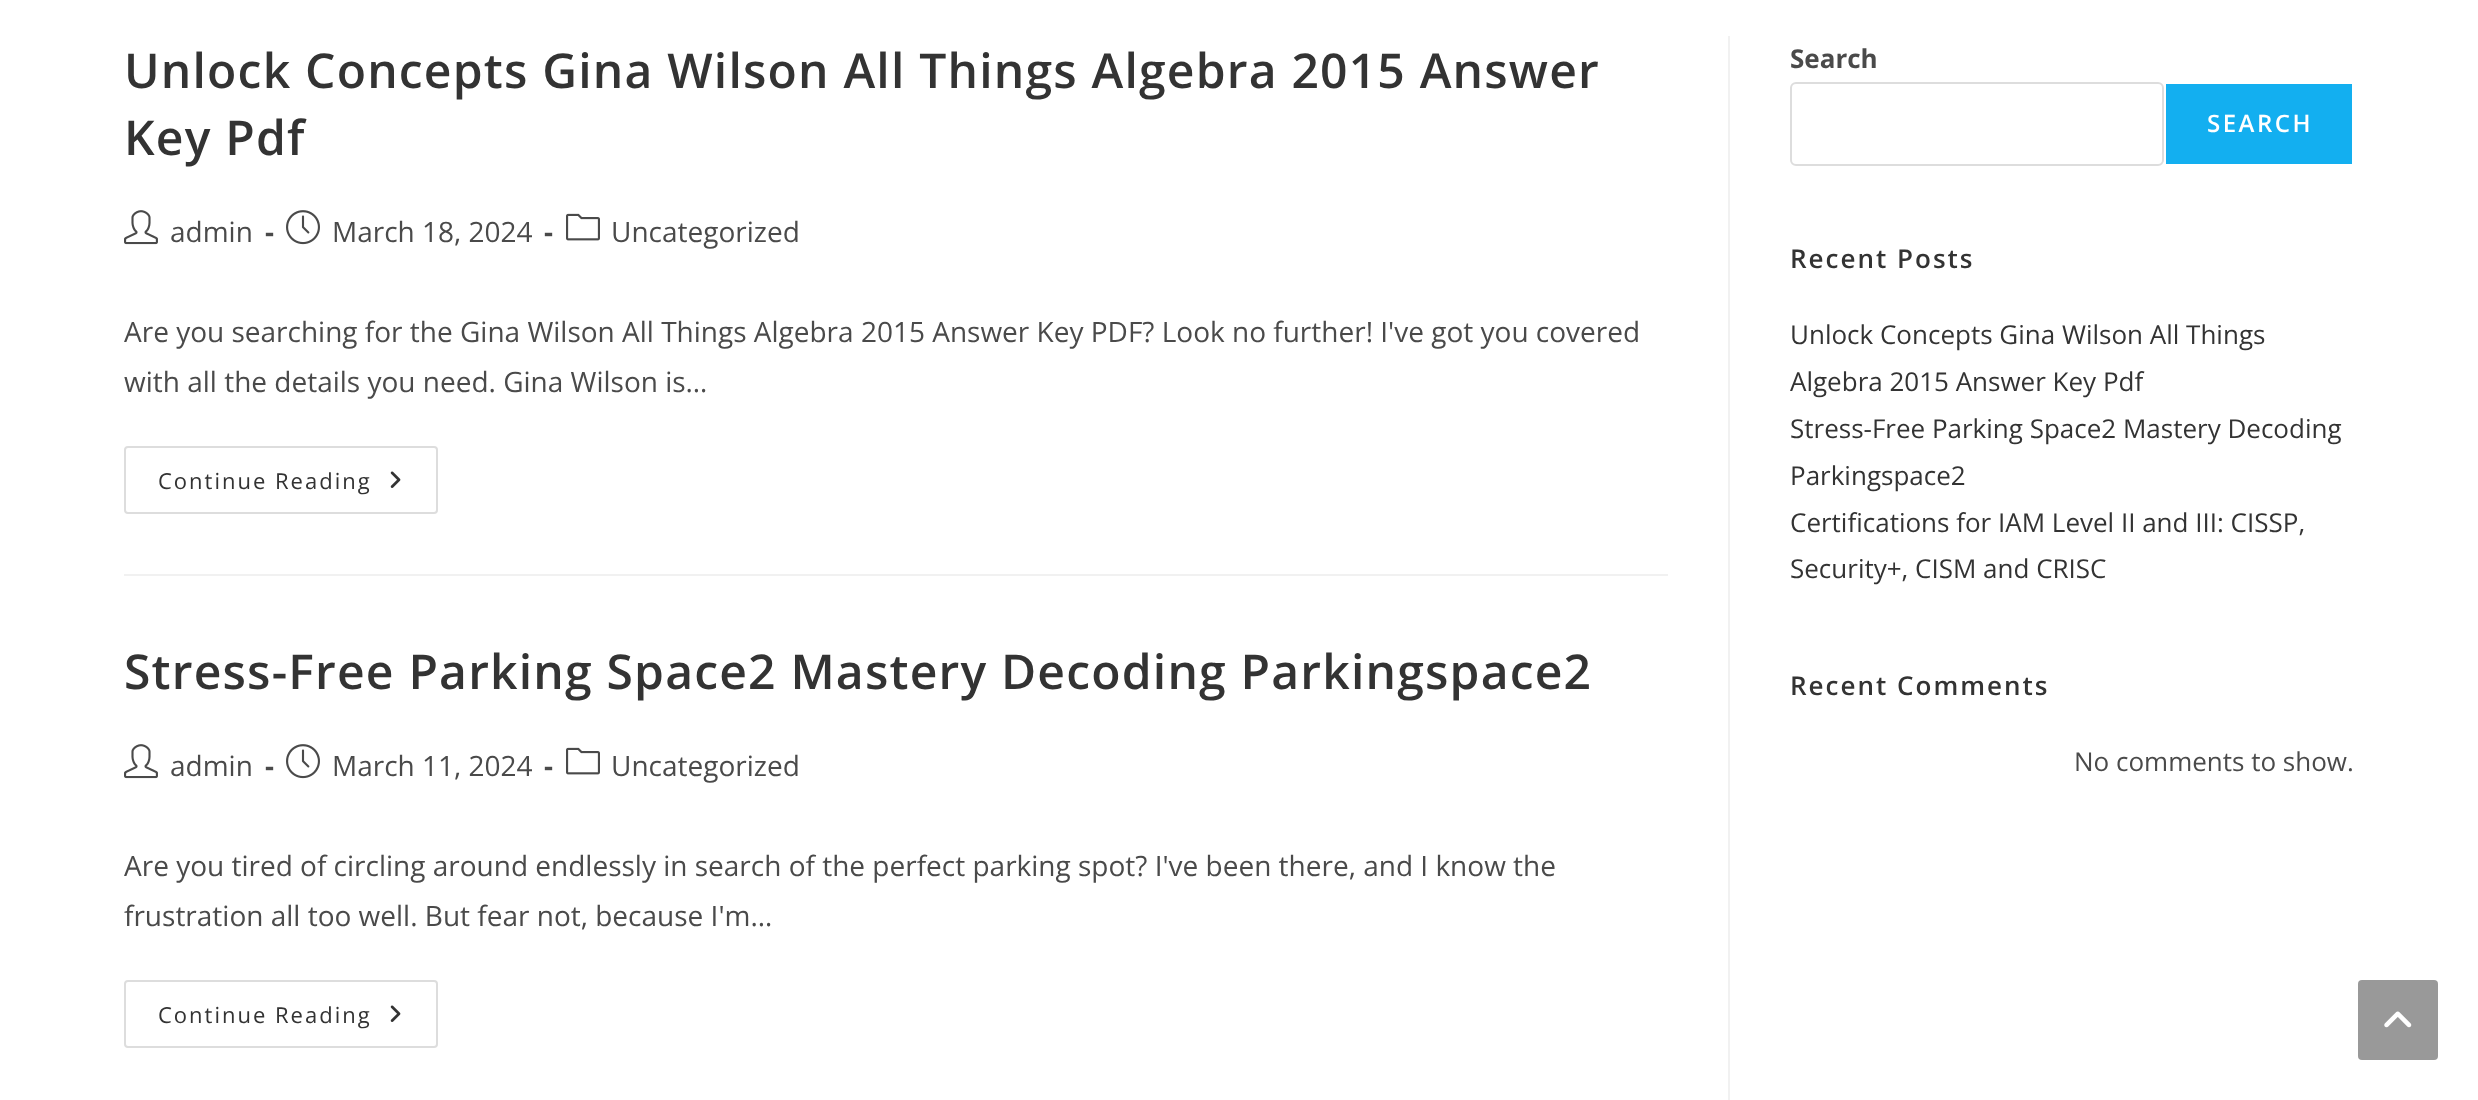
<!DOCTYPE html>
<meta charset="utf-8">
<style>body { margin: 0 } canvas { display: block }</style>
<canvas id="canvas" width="2478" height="1100"></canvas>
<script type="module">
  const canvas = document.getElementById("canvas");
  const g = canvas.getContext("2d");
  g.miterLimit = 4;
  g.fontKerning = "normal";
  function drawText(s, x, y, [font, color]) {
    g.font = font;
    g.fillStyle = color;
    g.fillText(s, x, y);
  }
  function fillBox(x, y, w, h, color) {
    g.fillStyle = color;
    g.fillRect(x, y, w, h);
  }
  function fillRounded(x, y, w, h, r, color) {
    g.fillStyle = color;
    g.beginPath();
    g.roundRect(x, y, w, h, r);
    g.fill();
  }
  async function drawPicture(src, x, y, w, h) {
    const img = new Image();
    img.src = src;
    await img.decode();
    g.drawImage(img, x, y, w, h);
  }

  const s1 = ["600 48px Open Sans", "#333333"];
  const s2 = ["28px Open Sans", "#4A4A4A"];
  const s3 = ["bold 28px Open Sans", "#4A4A4A"];
  const s4 = ["22px Open Sans", "#333333"];
  const s5 = ["bold 26px Open Sans", "#4A4A4A"];
  const s6 = ["600 24px Open Sans", "#FFFFFF"];
  const s7 = ["600 26px Open Sans", "#333333"];
  const s8 = ["26px Open Sans", "#333333"];
  const s9 = ["26px Open Sans", "#4A4A4A"];

  fillBox(0, 0, 2478, 1100, "#FFFFFF");
  fillBox(1728, 36, 2, 1064, "#F1F1F1");
  fillBox(124, 574, 1544, 2, "#F1F1F1");
  g.letterSpacing = "1.2px";
  drawText("Unlock Concepts Gina Wilson All Things Algebra 2015 Answer", 124, 88, s1);
  drawText("Key Pdf", 124, 155, s1);
  await drawPicture("pic1.png", 124, 210, 34, 35);
  g.letterSpacing = "0px";
  drawText("admin", 170, 242, s2);
  drawText("-", 265, 242, s3);
  await drawPicture("pic2.png", 286, 210, 34, 35);
  drawText("March 18, 2024", 332, 242, s2);
  drawText("-", 544, 242, s3);
  await drawPicture("pic3.png", 566, 213, 34, 28);
  drawText("Uncategorized", 611, 242, s2);
  drawText("Are you searching for the Gina Wilson All Things Algebra 2015 Answer Key PDF? Look no further! I've got you covered", 124, 342, s2);
  drawText("with all the details you need. Gina Wilson is…", 124, 392, s2);
  g.beginPath();
  g.roundRect(125, 447, 312, 66, 3);
  g.strokeStyle = "#DDDDDD";
  g.lineWidth = 2;
  g.stroke();
  g.letterSpacing = "2px";
  drawText("Continue Reading", 158, 489, s4);
  await drawPicture("pic4.png", 390, 471, 11, 17);
  g.letterSpacing = "1.2px";
  drawText("Stress-Free Parking Space2 Mastery Decoding Parkingspace2", 124, 689, s1);
  await drawPicture("pic1.png", 124, 744, 34, 35);
  g.letterSpacing = "0px";
  drawText("admin", 170, 776, s2);
  drawText("-", 265, 776, s3);
  await drawPicture("pic2.png", 286, 744, 34, 35);
  drawText("March 11, 2024", 332, 776, s2);
  drawText("-", 544, 776, s3);
  await drawPicture("pic3.png", 566, 747, 34, 28);
  drawText("Uncategorized", 611, 776, s2);
  drawText("Are you tired of circling around endlessly in search of the perfect parking spot? I've been there, and I know the", 124, 876, s2);
  drawText("frustration all too well. But fear not, because I'm…", 124, 926, s2);
  g.beginPath();
  g.roundRect(125, 981, 312, 66, 3);
  g.stroke();
  g.letterSpacing = "2px";
  drawText("Continue Reading", 158, 1023, s4);
  await drawPicture("pic4.png", 390, 1005, 11, 17);
  g.letterSpacing = "0px";
  drawText("Search", 1790, 68, s5);
  g.beginPath();
  g.roundRect(1791, 83, 372, 82, 5);
  g.stroke();
  fillBox(2166, 84, 186, 80, "#13AFF0");
  g.letterSpacing = "2.5px";
  drawText("SEARCH", 2207, 132, s6);
  g.letterSpacing = "2px";
  drawText("Recent Posts", 1790, 268, s7);
  g.letterSpacing = "0px";
  drawText("Unlock Concepts Gina Wilson All Things", 1790, 344, s8);
  drawText("Algebra 2015 Answer Key Pdf", 1790, 391, s8);
  drawText("Stress-Free Parking Space2 Mastery Decoding", 1790, 438, s8);
  drawText("Parkingspace2", 1790, 485, s8);
  drawText("Certifications for IAM Level II and III: CISSP,", 1790, 532, s8);
  drawText("Security+, CISM and CRISC", 1790, 578, s8);
  g.letterSpacing = "2px";
  drawText("Recent Comments", 1790, 695, s7);
  g.letterSpacing = "0px";
  drawText("No comments to show.", 2074, 771, s9);
  fillRounded(2358, 980, 80, 80, 4, "#999999");
  await drawPicture("pic5.png", 2384, 1011, 28, 17);
</script>
